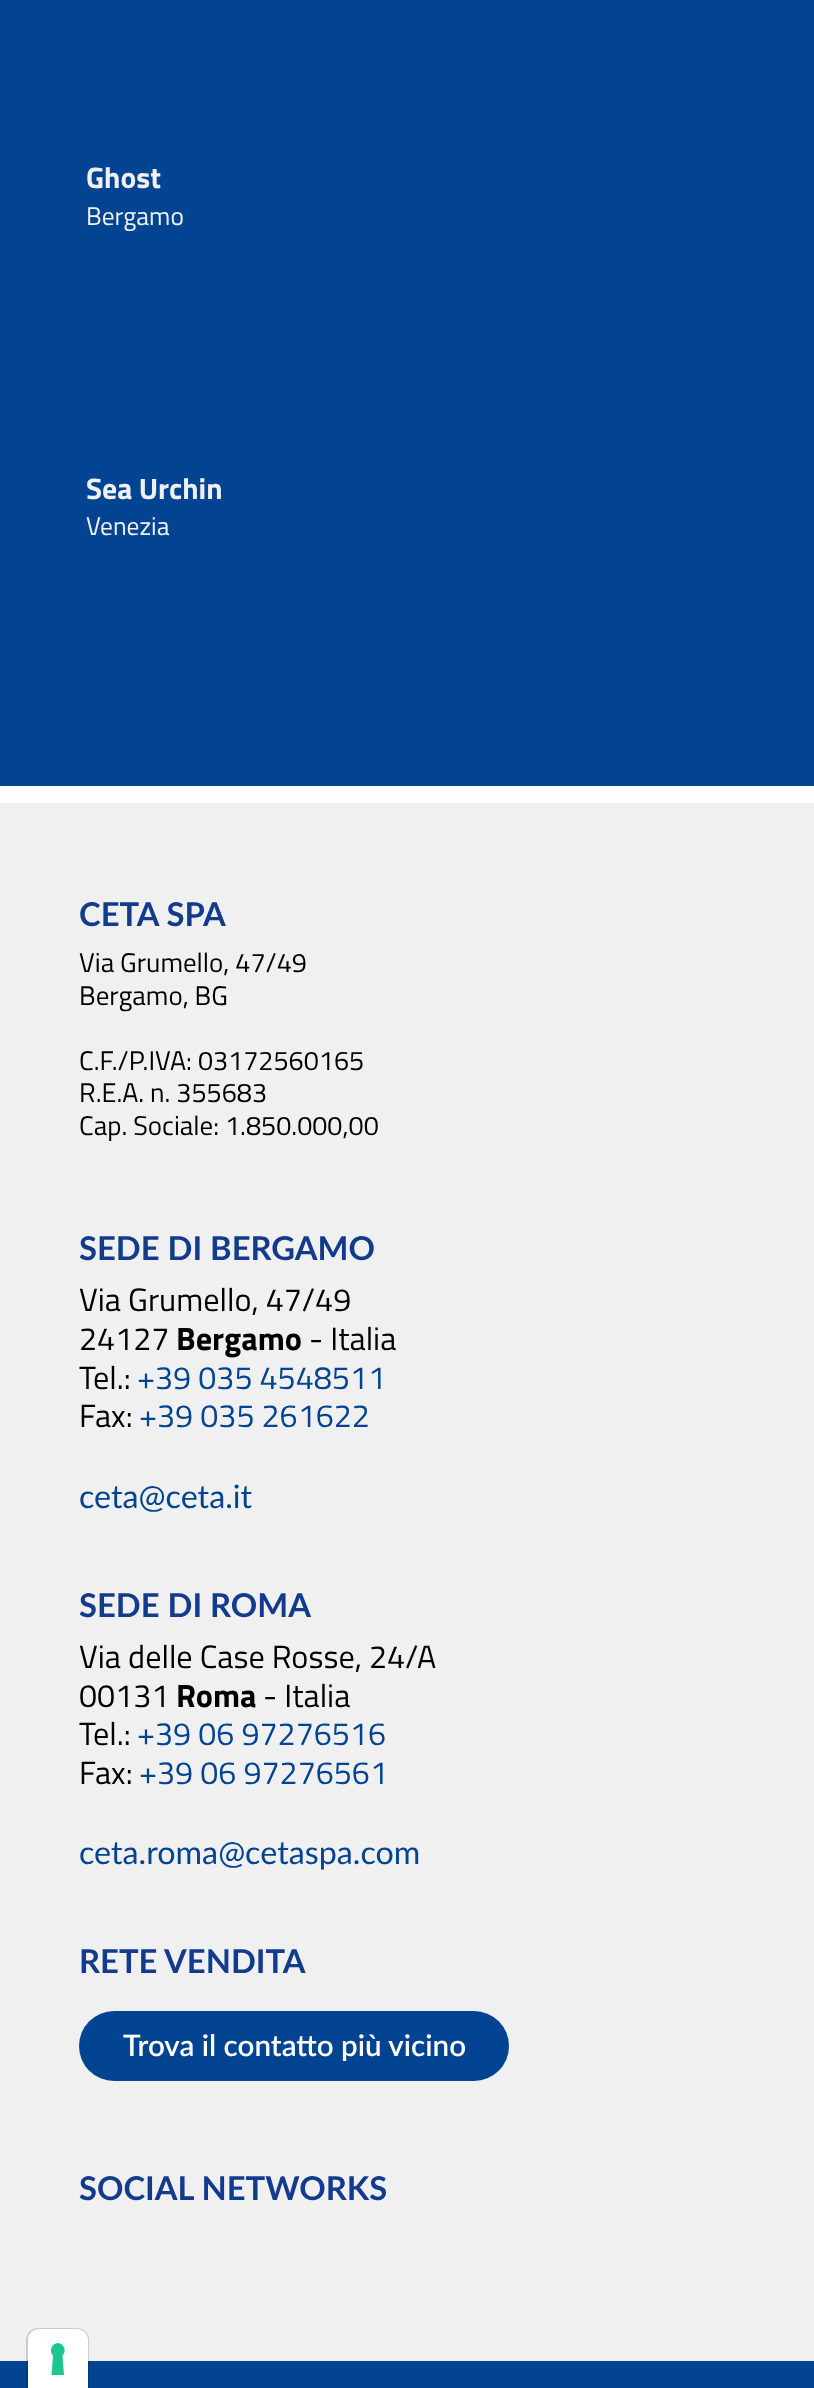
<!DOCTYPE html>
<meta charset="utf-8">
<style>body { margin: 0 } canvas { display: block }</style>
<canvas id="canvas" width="814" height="2388"></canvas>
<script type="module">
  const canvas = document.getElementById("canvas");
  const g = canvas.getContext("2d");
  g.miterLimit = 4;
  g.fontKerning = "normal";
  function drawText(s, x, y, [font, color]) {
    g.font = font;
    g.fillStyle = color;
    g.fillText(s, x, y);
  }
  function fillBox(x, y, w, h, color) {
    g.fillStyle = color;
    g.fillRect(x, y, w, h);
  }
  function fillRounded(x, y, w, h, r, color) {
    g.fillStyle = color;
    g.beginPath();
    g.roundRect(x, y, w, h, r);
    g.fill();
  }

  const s1 = ["bold 29.6px Titillium Web", "#F0F0F0"];
  const s2 = ["25.5px Titillium Web", "#F0F0F0"];
  const s3 = ["bold 32.75px Lato", "#133B8C"];
  const s4 = ["27px Titillium Web", "#000000"];
  const s5 = ["32.25px Titillium Web", "#000000"];
  const s6 = ["bold 32.25px Titillium Web", "#000000"];
  const s7 = ["32.25px Titillium Web", "#024492"];
  const s8 = ["32.25px Lato", "#024492"];
  const s9 = ["600 29.6px Lato", "#FFFFFF"];

  fillBox(0, 0, 814, 2388, "#F0F0F0");
  fillBox(0, 0, 814, 786, "#024492");
  drawText("Ghost", 86, 188, s1);
  drawText("Bergamo", 86, 225, s2);
  drawText("Sea Urchin", 86, 499, s1);
  drawText("Venezia", 86, 535, s2);
  fillBox(0, 786, 814, 17, "#FFFFFF");
  drawText("CETA SPA", 79, 926, s3);
  drawText("Via Grumello, 47/49", 79, 972, s4);
  drawText("Bergamo, BG", 79, 1005, s4);
  drawText("C.F./P.IVA: 03172560165", 79, 1070, s4);
  drawText("R.E.A. n. 355683", 79, 1102, s4);
  drawText("Cap. Sociale: 1.850.000,00", 79, 1135, s4);
  drawText("SEDE DI BERGAMO", 79, 1260, s3);
  drawText("Via Grumello, 47/49", 79, 1311, s5);
  drawText("24127", 79, 1350, s5);
  drawText("Bergamo", 176, 1350, s6);
  drawText("- Italia", 309, 1350, s5);
  drawText("Tel.:", 79, 1389, s5);
  drawText("+39 035 4548511", 137, 1389, s7);
  drawText("Fax:", 79, 1427, s5);
  drawText("+39 035 261622", 139, 1427, s7);
  drawText("ceta@ceta.it", 79, 1508, s8);
  drawText("SEDE DI ROMA", 79, 1617, s3);
  drawText("Via delle Case Rosse, 24/A", 79, 1668, s5);
  drawText("00131", 79, 1707, s5);
  drawText("Roma", 176, 1707, s6);
  drawText("- Italia", 263, 1707, s5);
  drawText("Tel.:", 79, 1745, s5);
  drawText("+39 06 97276516", 137, 1745, s7);
  drawText("Fax:", 79, 1784, s5);
  drawText("+39 06 97276561", 139, 1784, s7);
  drawText("ceta.roma@cetaspa.com", 79, 1864, s8);
  drawText("RETE VENDITA", 79, 1973, s3);
  fillRounded(79, 2011, 430, 70, 35, "#024492");
  drawText("Trova il contatto più vicino", 123, 2056, s9);
  drawText("SOCIAL NETWORKS", 79, 2200, s3);
  fillBox(0, 2361, 814, 27, "#024492");
  g.beginPath();
  g.moveTo(38, 2329);
  g.lineTo(77, 2329);
  g.bezierCurveTo(83, 2329, 88, 2334, 88, 2340);
  g.lineTo(88, 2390);
  g.lineTo(27, 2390);
  g.lineTo(27, 2340);
  g.bezierCurveTo(27, 2334, 32, 2329, 38, 2329);
  g.closePath();
  g.strokeStyle = "rgba(0, 0, 0, 0.15)";
  g.lineWidth = 2;
  g.stroke();
  g.fillStyle = "#FFFFFF";
  g.beginPath();
  g.moveTo(39, 2329);
  g.lineTo(77, 2329);
  g.bezierCurveTo(83, 2329, 88, 2334, 88, 2340);
  g.lineTo(88, 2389);
  g.lineTo(28, 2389);
  g.lineTo(28, 2340);
  g.bezierCurveTo(28, 2334, 33, 2329, 39, 2329);
  g.closePath();
  g.fill();
  g.fillStyle = "#1CC691";
  g.beginPath();
  g.moveTo(58, 2343);
  g.bezierCurveTo(64, 2343.5, 67, 2351.5, 62.5, 2355.5);
  g.lineTo(64, 2375);
  g.lineTo(51.5, 2375);
  g.lineTo(53, 2355.5);
  g.bezierCurveTo(48.5, 2351.5, 51.5, 2343.5, 58, 2343);
  g.closePath();
  g.fill("evenodd");
</script>
